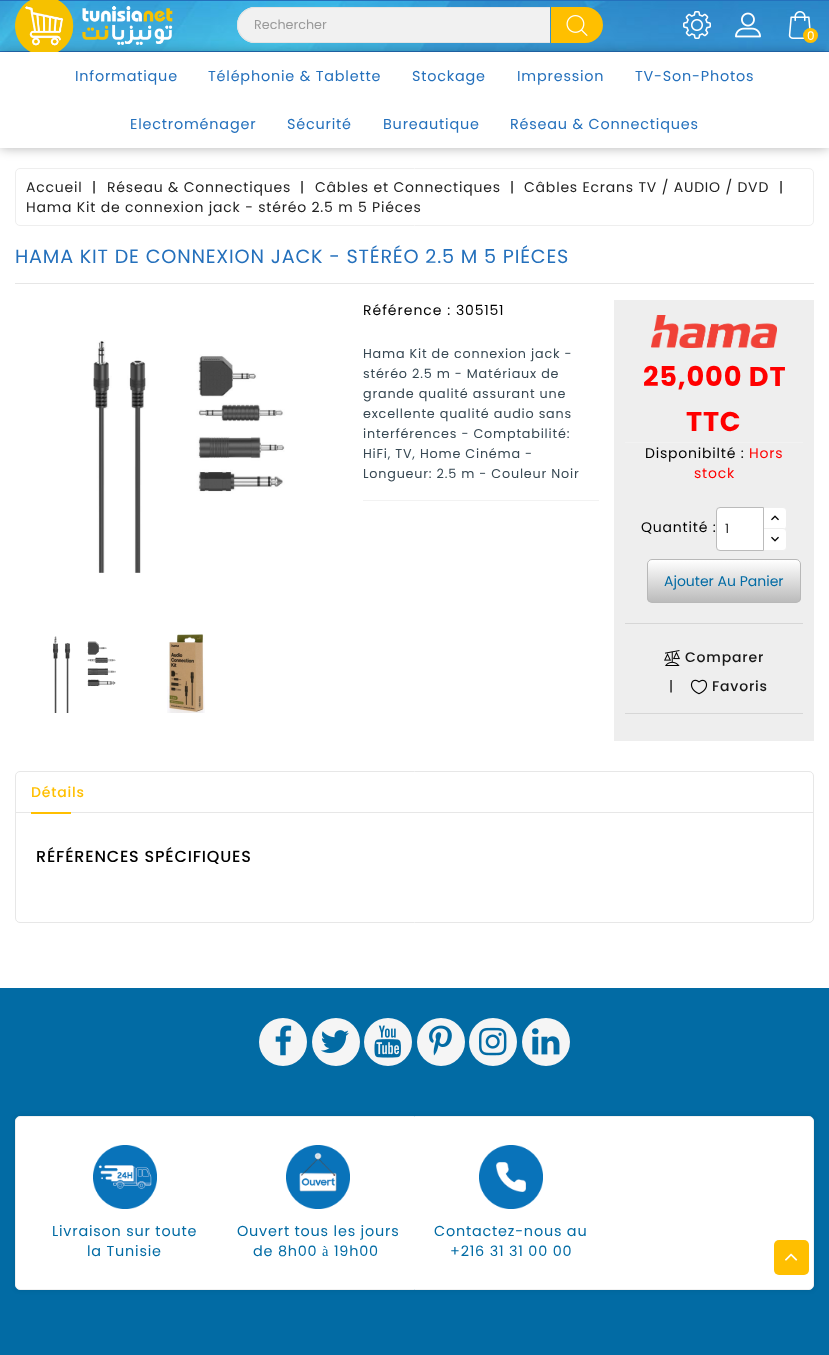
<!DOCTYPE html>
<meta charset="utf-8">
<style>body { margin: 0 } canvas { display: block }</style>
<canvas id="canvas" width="829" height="1355"></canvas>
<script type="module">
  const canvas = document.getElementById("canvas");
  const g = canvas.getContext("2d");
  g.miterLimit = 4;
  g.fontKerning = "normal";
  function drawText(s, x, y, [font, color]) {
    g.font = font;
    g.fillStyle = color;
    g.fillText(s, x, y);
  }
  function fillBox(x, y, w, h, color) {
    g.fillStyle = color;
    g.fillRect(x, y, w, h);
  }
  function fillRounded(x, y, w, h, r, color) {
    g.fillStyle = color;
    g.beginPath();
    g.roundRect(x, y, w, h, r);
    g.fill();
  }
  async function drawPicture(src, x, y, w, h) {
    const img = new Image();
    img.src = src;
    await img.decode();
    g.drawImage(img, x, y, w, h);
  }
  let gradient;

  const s1 = ["12.75px Poppins", "#999999"];
  const s2 = ["12px Poppins", "#FFFFFF"];
  const s3 = ["14.4px Poppins", "#2470BC"];
  const s4 = ["14px Poppins", "#222222"];
  const s5 = ["14px Poppins", "#000000"];
  const s6 = ["19.2px Poppins", "#2470BC"];
  const s7 = ["12.75px Poppins", "#374853"];
  const s8 = ["bold 27.25px Poppins", "#FF0000"];
  const s9 = ["14px Poppins", "#FF0000"];
  const s10 = ["12.75px Poppins", "#222222"];
  const s11 = ["14px Poppins", "#026BA4"];
  const s12 = ["500 14px Poppins", "#161616"];
  const s13 = ["500 14px Poppins", "#FFBF00"];
  const s14 = ["500 16px Poppins", "#000000"];
  const s15 = ["14.4px Poppins", "#026BA4"];

  fillBox(0, 0, 829, 1355, "#FFFFFF");
  fillBox(0, 0, 829, 52, "#2470BC");
  await drawPicture("pic1.png", 0, 1, 829, 50);
  g.save();
  g.beginPath();
  g.moveTo(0, 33);
  g.lineTo(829, 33);
  g.lineTo(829, 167);
  g.lineTo(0, 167);
  g.closePath();
  g.moveTo(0, 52);
  g.lineTo(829, 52);
  g.lineTo(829, 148);
  g.lineTo(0, 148);
  g.closePath();
  g.clip("evenodd");
  g.fillStyle = "rgba(0, 0, 0, 0.3)";
  g.filter = "blur(6px)";
  g.beginPath();
  g.rect(0, 52, 829, 96);
  g.fill();
  g.filter = "none";
  g.restore();
  await drawPicture("pic2.png", 15, 0, 158, 52);
  g.fillStyle = "#F1F1F1";
  g.beginPath();
  g.roundRect(237, 7, 313, 36, [18, 0, 0, 18]);
  g.fill();
  g.fillStyle = "#E4E4E4";
  g.beginPath();
  g.moveTo(255, 7);
  g.lineTo(550, 7);
  g.lineTo(550, 43);
  g.lineTo(255, 43);
  g.bezierCurveTo(245, 43, 237, 35, 237, 25);
  g.bezierCurveTo(237, 15, 245, 7, 255, 7);
  g.closePath();
  g.moveTo(255, 8);
  g.lineTo(550, 8);
  g.lineTo(550, 42);
  g.lineTo(255, 42);
  g.bezierCurveTo(246, 42, 238, 34, 238, 25);
  g.bezierCurveTo(238, 16, 246, 8, 255, 8);
  g.closePath();
  g.fill("evenodd");
  drawText("Rechercher", 254, 29, s1);
  g.fillStyle = "#FFBF00";
  g.beginPath();
  g.roundRect(551, 7, 52, 36, [0, 18, 18, 0]);
  g.fill();
  await drawPicture("pic3.png", 566, 15, 22, 21);
  await drawPicture("pic4.png", 683, 11, 28, 28);
  await drawPicture("pic5.png", 735, 12, 26, 26);
  await drawPicture("pic6.png", 788, 11, 23, 28);
  g.beginPath();
  g.arc(810.5, 35.5, 7.5, 0, Math.PI * 2);
  g.fill();
  g.letterSpacing = "0.8px";
  drawText("0", 807, 40, s2);
  drawText("Informatique", 75, 81, s3);
  drawText("Téléphonie & Tablette", 208, 81, s3);
  drawText("Stockage", 412, 81, s3);
  drawText("Impression", 517, 81, s3);
  drawText("TV-Son-Photos", 635, 81, s3);
  drawText("Electroménager", 130, 129, s3);
  drawText("Sécurité", 287, 129, s3);
  drawText("Bureautique", 383, 129, s3);
  drawText("Réseau & Connectiques", 510, 129, s3);
  g.beginPath();
  g.roundRect(15.5, 168.5, 798, 57, 4.5);
  g.strokeStyle = "#EEEEEE";
  g.stroke();
  drawText("Accueil", 26, 192, s4);
  drawText("|", 92, 192, s5);
  drawText("Réseau & Connectiques", 107, 192, s4);
  drawText("|", 300, 192, s5);
  drawText("Câbles et Connectiques", 315, 192, s4);
  drawText("|", 510, 192, s5);
  drawText("Câbles Ecrans TV / AUDIO / DVD", 524, 192, s4);
  drawText("|", 779, 192, s5);
  drawText("Hama Kit de connexion jack - stéréo 2.5 m 5 Piéces", 26, 212, s4);
  drawText("HAMA KIT DE CONNEXION JACK - STÉRÉO 2.5 M 5 PIÉCES", 15, 263, s6);
  fillBox(15, 283, 799, 1, "#E6E6E6");
  await drawPicture("pic7.png", 93, 340, 192, 233);
  await drawPicture("pic8.png", 52, 636, 64, 77);
  await drawPicture("pic9.png", 167, 634, 38, 79);
  g.letterSpacing = "1px";
  drawText("Référence :", 363, 315, s5);
  g.letterSpacing = "0.8px";
  drawText("305151", 456, 315, s5);
  fillBox(363, 500, 236, 1, "#F2F2F2");
  drawText("Hama Kit de connexion jack -", 363, 358, s7);
  drawText("stéréo 2.5 m - Matériaux de", 363, 378, s7);
  drawText("grande qualité assurant une", 363, 398, s7);
  drawText("excellente qualité audio sans", 363, 418, s7);
  drawText("interférences - Comptabilité:", 363, 438, s7);
  drawText("HiFi, TV, Home Cinéma -", 363, 458, s7);
  drawText("Longueur: 2.5 m - Couleur Noir", 363, 478, s7);
  fillBox(614, 300, 200, 441, "#EEEEEE");
  await drawPicture("pic10.png", 651, 315, 126, 33);
  fillBox(625, 442, 178, 1, "#F2F2F2");
  drawText("25,000 DT", 643, 386, s8);
  drawText("TTC", 686, 431, s8);
  drawText("Disponibilté :", 645, 458, s5);
  drawText("Hors", 749, 458, s9);
  drawText("stock", 694, 478, s9);
  drawText("Quantité :", 641, 532, s5);
  g.fillStyle = "#FFFFFF";
  g.beginPath();
  g.roundRect(763.5, 507.5, 23, 22, [0, 3.5, 3.5, 0]);
  g.fill();
  g.stroke();
  g.beginPath();
  g.roundRect(763.5, 528.5, 23, 22, [0, 3.5, 3.5, 0]);
  g.fill();
  g.stroke();
  g.beginPath();
  g.roundRect(716.5, 507.5, 47, 43, [3.5, 0, 0, 3.5]);
  g.fill();
  g.strokeStyle = "#BBBBBB";
  g.stroke();
  g.letterSpacing = "0px";
  drawText("1", 725, 533, s10);
  await drawPicture("pic11.png", 771, 515, 8, 6);
  await drawPicture("pic12.png", 771, 536, 8, 6);
  g.save();
  g.beginPath();
  g.roundRect(647, 559, 154, 44, 5);
  g.clip();
  gradient = g.createLinearGradient(724, 560, 724, 602);
  gradient.addColorStop(0, "#FFFFFF");
  gradient.addColorStop(1, "#BBBBBB");
  g.fillStyle = gradient;
  g.fillRect(647, 560, 154, 42);
  g.restore();
  g.beginPath();
  g.roundRect(647.5, 559.5, 153, 43, 4.5);
  g.strokeStyle = "#B8B8B8";
  g.stroke();
  drawText("Ajouter Au Panier", 664, 586, s11);
  fillBox(625, 623, 178, 1, "#D6D6D6");
  await drawPicture("pic13.png", 664, 650, 16, 16);
  g.letterSpacing = "0.8px";
  drawText("Comparer", 685, 662, s12);
  drawText("|", 669, 691, s5);
  await drawPicture("pic14.png", 690, 679, 18, 16);
  drawText("Favoris", 712, 691, s12);
  fillBox(625, 713, 178, 1, "#D6D6D6");
  g.beginPath();
  g.roundRect(15.5, 771.5, 798, 151, 4.5);
  g.strokeStyle = "#E7E7E7";
  g.stroke();
  fillBox(16, 812, 797, 1, "#E7E7E7");
  drawText("Détails", 31, 797, s13);
  fillBox(31, 812, 40, 2, "#FFBF00");
  drawText("RÉFÉRENCES SPÉCIFIQUES", 36, 862, s14);
  fillBox(0, 988, 829, 367, "#026BA4");
  g.fillStyle = "#F5F5F5";
  g.beginPath();
  g.arc(283, 1042, 24, 0, Math.PI * 2);
  g.fill();
  await drawPicture("pic15.png", 275, 1025, 17, 31);
  g.beginPath();
  g.arc(336, 1042, 24, 0, Math.PI * 2);
  g.fill();
  await drawPicture("pic16.png", 321, 1030, 28, 23);
  g.beginPath();
  g.arc(388, 1042, 24, 0, Math.PI * 2);
  g.fill();
  await drawPicture("pic17.png", 374, 1025, 27, 33);
  g.beginPath();
  g.arc(441, 1042, 24, 0, Math.PI * 2);
  g.fill();
  await drawPicture("pic18.png", 429, 1025, 23, 31);
  g.beginPath();
  g.arc(493, 1042, 24, 0, Math.PI * 2);
  g.fill();
  await drawPicture("pic19.png", 479, 1027, 28, 29);
  g.beginPath();
  g.arc(546, 1042, 24, 0, Math.PI * 2);
  g.fill();
  await drawPicture("pic20.png", 532, 1028, 28, 27);
  g.fillStyle = "rgba(0, 0, 0, 0.1)";
  g.filter = "blur(2.5px)";
  g.beginPath();
  g.roundRect(15, 1116, 799, 174, 5);
  g.fill();
  g.filter = "none";
  g.fillStyle = "#FFFFFF";
  g.beginPath();
  g.roundRect(15.5, 1116.5, 798, 173, 4.5);
  g.fill();
  g.strokeStyle = "#F1F1F1";
  g.stroke();
  await drawPicture("pic21.png", 93, 1145, 64, 64);
  drawText("Livraison sur toute", 52, 1236, s15);
  drawText("la Tunisie", 87, 1256, s15);
  await drawPicture("pic22.png", 286, 1145, 64, 64);
  drawText("Ouvert tous les jours", 237, 1236, s15);
  drawText("de 8h00 à 19h00", 253, 1256, s15);
  await drawPicture("pic23.png", 479, 1145, 64, 64);
  drawText("Contactez-nous au", 434, 1236, s15);
  drawText("+216 31 31 00 00", 450, 1256, s15);
  fillRounded(774, 1240, 35, 35, 5, "#FFBF00");
  await drawPicture("pic24.png", 785, 1253, 13, 8);
</script>
